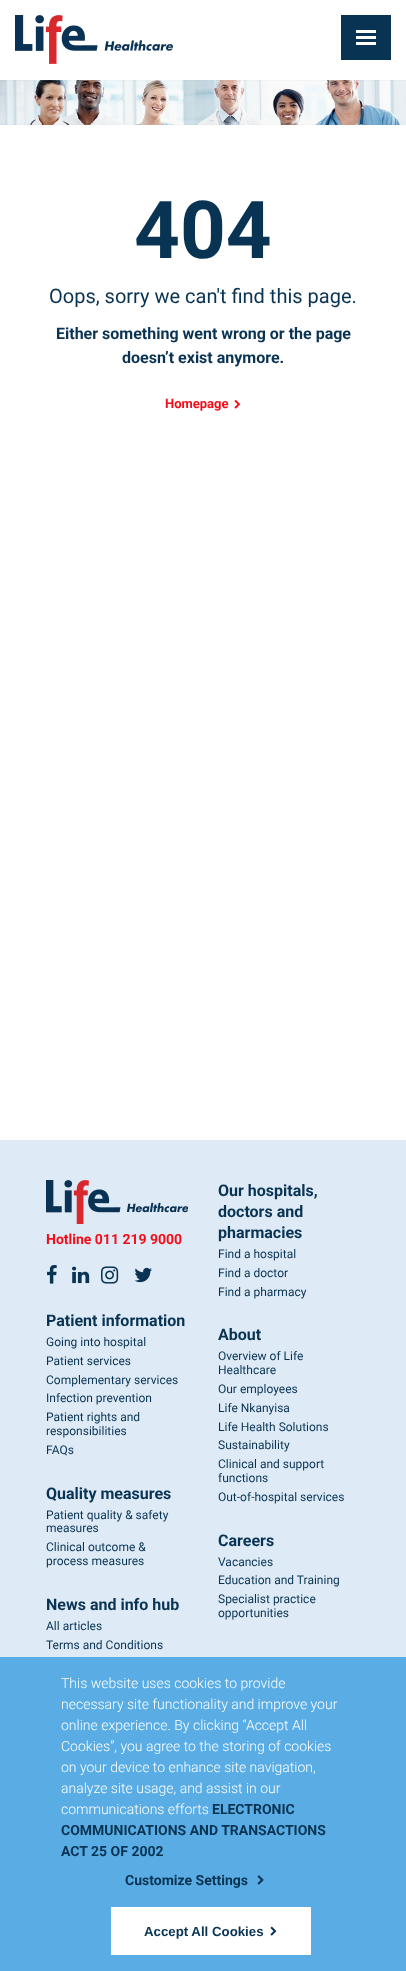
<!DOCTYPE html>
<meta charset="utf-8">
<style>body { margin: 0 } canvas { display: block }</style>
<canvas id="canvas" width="406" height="1971"></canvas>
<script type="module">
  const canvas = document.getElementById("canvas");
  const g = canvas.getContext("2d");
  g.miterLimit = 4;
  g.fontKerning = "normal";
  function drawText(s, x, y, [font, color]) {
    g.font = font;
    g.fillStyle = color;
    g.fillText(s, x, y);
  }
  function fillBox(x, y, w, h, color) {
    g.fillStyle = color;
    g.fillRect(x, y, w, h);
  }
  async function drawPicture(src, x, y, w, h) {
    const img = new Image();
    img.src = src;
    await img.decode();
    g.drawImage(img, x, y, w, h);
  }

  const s1 = ["bold 80px Roboto", "#093353"];
  const s2 = ["20px Roboto", "#093353"];
  const s3 = ["bold 16px Roboto", "#093353"];
  const s4 = ["bold 13px Roboto", "#F20D19"];
  const s5 = ["bold 14px Roboto", "#F20D19"];
  const s6 = ["12px Roboto", "#093353"];
  const s7 = ["300 14px Roboto", "#FFFFFF"];
  const s8 = ["bold 14px Roboto", "#093353"];
  const s9 = ["bold 13.25px Liberation Sans", "#093353"];

  fillBox(0, 0, 406, 1971, "#FFFFFF");
  await drawPicture("pic1.png", 15, 15, 158, 49);
  fillBox(341, 15, 50, 45, "#093353");
  fillBox(356, 30, 20, 3, "#FFFFFF");
  fillBox(356, 36, 20, 3, "#FFFFFF");
  fillBox(356, 42, 20, 3, "#FFFFFF");
  await drawPicture("pic2.png", 0, 80, 406, 45);
  drawText("404", 134, 258, s1);
  drawText("Oops, sorry we can't find this page.", 49, 303, s2);
  drawText("Either something went wrong or the page", 56, 339, s3);
  drawText("doesn’t exist anymore.", 122, 363, s3);
  drawText("Homepage", 165, 408, s4);
  await drawPicture("pic3.png", 234, 399, 7, 10);
  fillBox(0, 1140, 406, 517, "#DEEBF7");
  await drawPicture("pic4.png", 46, 1180, 142, 44);
  drawText("Hotline 011 219 9000", 46, 1244, s5);
  await drawPicture("pic5.png", 47, 1265, 10, 19);
  await drawPicture("pic6.png", 72, 1266, 18, 18);
  await drawPicture("pic7.png", 101, 1266, 18, 18);
  await drawPicture("pic8.png", 134, 1267, 18, 16);
  drawText("Our hospitals,", 218, 1196, s3);
  drawText("doctors and", 218, 1217, s3);
  drawText("pharmacies", 218, 1238, s3);
  drawText("Find a hospital", 218, 1258, s6);
  drawText("Find a doctor", 218, 1277, s6);
  drawText("Find a pharmacy", 218, 1296, s6);
  drawText("About", 218, 1340, s3);
  drawText("Overview of Life", 218, 1360, s6);
  drawText("Healthcare", 218, 1374, s6);
  drawText("Our employees", 218, 1393, s6);
  drawText("Life Nkanyisa", 218, 1412, s6);
  drawText("Life Health Solutions", 218, 1431, s6);
  drawText("Sustainability", 218, 1449, s6);
  drawText("Clinical and support", 218, 1468, s6);
  drawText("functions", 218, 1482, s6);
  drawText("Out-of-hospital services", 218, 1501, s6);
  drawText("Patient information", 46, 1326, s3);
  drawText("Going into hospital", 46, 1346, s6);
  drawText("Patient services", 46, 1365, s6);
  drawText("Complementary services", 46, 1384, s6);
  drawText("Infection prevention", 46, 1402, s6);
  drawText("Patient rights and", 46, 1421, s6);
  drawText("responsibilities", 46, 1435, s6);
  drawText("FAQs", 46, 1454, s6);
  drawText("Quality measures", 46, 1499, s3);
  drawText("Patient quality & safety", 46, 1519, s6);
  drawText("measures", 46, 1532, s6);
  drawText("Clinical outcome &", 46, 1551, s6);
  drawText("process measures", 46, 1565, s6);
  drawText("News and info hub", 46, 1610, s3);
  drawText("All articles", 46, 1630, s6);
  drawText("Terms and Conditions", 46, 1649, s6);
  drawText("Careers", 218, 1546, s3);
  drawText("Vacancies", 218, 1566, s6);
  drawText("Education and Training", 218, 1584, s6);
  drawText("Specialist practice", 218, 1603, s6);
  drawText("opportunities", 218, 1617, s6);
  fillBox(0, 1657, 406, 314, "#59ADE4");
  drawText("This website uses cookies to provide", 61, 1688, s7);
  drawText("necessary site functionality and improve your", 61, 1709, s7);
  drawText("online experience. By clicking “Accept All", 61, 1730, s7);
  drawText("Cookies”, you agree to the storing of cookies", 61, 1751, s7);
  drawText("on your device to enhance site navigation,", 61, 1772, s7);
  drawText("analyze site usage, and assist in our", 61, 1793, s7);
  drawText("communications efforts", 61, 1814, s7);
  drawText("ELECTRONIC", 212, 1814, s8);
  drawText("COMMUNICATIONS AND TRANSACTIONS", 61, 1835, s8);
  drawText("ACT 25 OF 2002", 61, 1856, s8);
  drawText("Customize Settings", 125, 1885, s8);
  await drawPicture("pic9.png", 257, 1875, 7, 10);
  fillBox(111, 1907, 200, 48, "#FFFFFF");
  drawText("Accept All Cookies", 144, 1936, s9);
  await drawPicture("pic10.png", 270, 1926, 7, 10);
</script>
